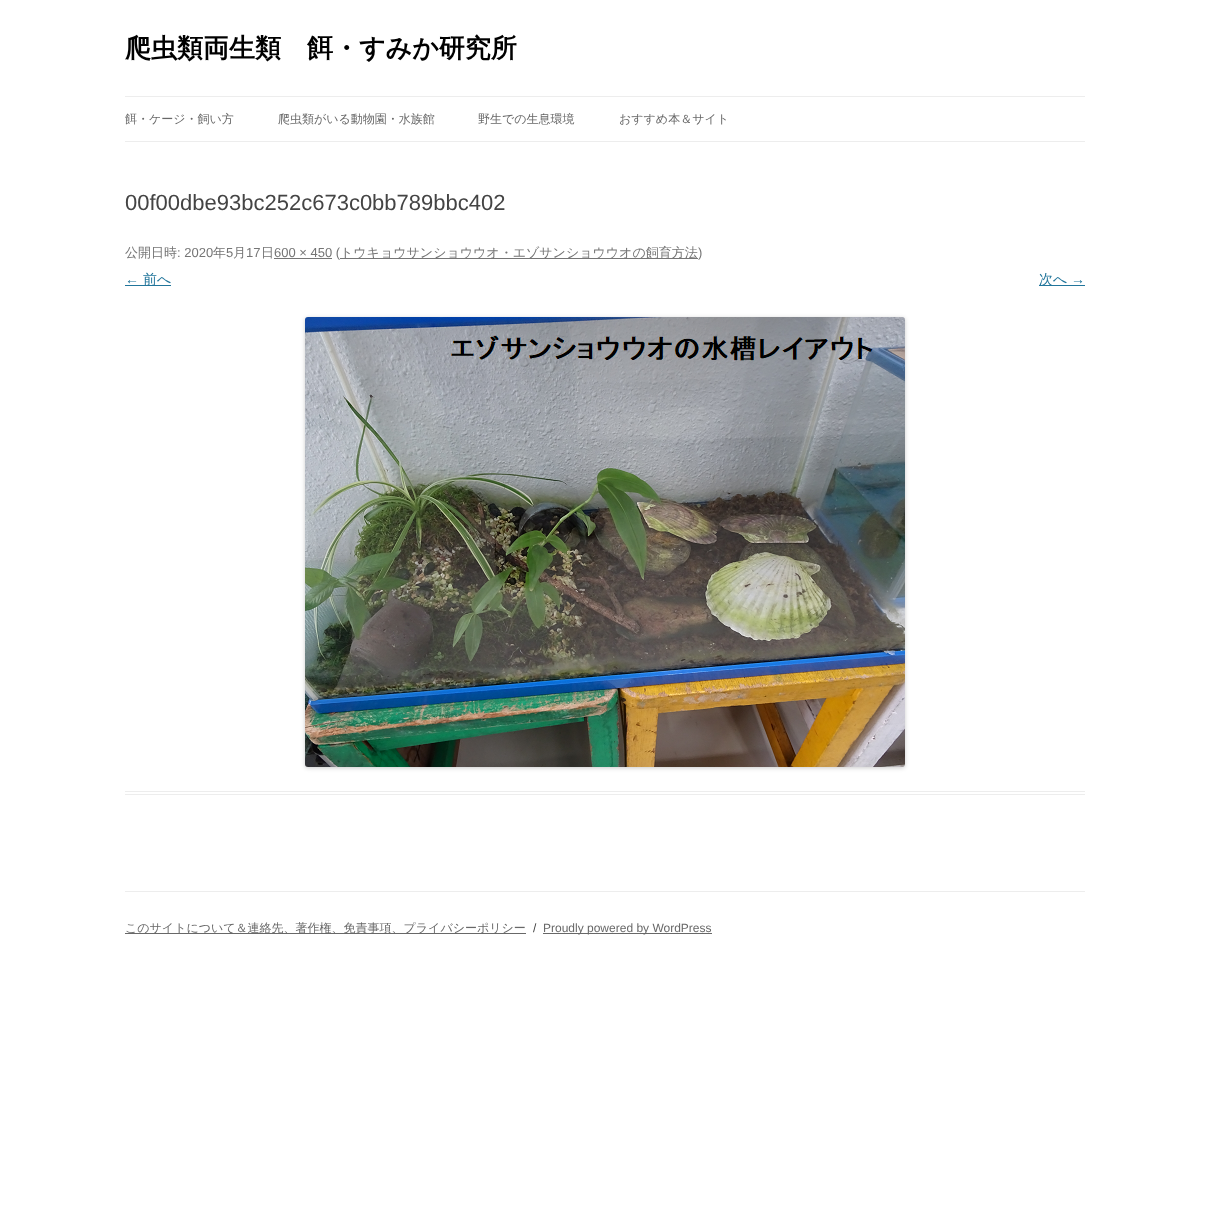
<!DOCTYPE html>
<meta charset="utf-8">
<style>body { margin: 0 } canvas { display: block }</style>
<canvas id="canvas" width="1210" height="1218"></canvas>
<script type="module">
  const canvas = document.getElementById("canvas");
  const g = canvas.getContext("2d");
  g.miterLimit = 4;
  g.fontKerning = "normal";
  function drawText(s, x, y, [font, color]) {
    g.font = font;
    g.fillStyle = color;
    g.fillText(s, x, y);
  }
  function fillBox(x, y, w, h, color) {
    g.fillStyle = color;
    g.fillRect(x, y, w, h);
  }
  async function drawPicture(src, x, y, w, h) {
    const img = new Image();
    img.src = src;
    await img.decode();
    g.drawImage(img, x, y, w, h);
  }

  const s1 = ["bold 26px WenQuanYi Zen Hei", "#000000"];
  const s2 = ["500 12px WenQuanYi Zen Hei", "#686868"];
  const s3 = ["22px Liberation Sans", "#444444"];
  const s4 = ["500 13px WenQuanYi Zen Hei", "#757575"];
  const s5 = ["13px Liberation Sans", "#757575"];
  const s6 = ["14px Liberation Sans", "#21759B"];
  const s7 = ["500 14px WenQuanYi Zen Hei", "#21759B"];
  const s8 = ["12px Liberation Sans", "#444444"];
  const s9 = ["12px Liberation Sans", "#686868"];

  fillBox(0, 0, 1210, 1218, "#FFFFFF");
  drawText("爬虫類両生類　餌・すみか研究所", 125, 57, s1);
  fillBox(125, 96, 960, 1, "#EDEDED");
  fillBox(125, 141, 960, 1, "#EDEDED");
  drawText("餌・ケージ・飼い方", 125, 123, s2);
  drawText("爬虫類がいる動物園・水族館", 278, 123, s2);
  drawText("野生での生息環境", 478, 123, s2);
  drawText("おすすめ本＆サイト", 619, 123, s2);
  fillBox(125, 791, 960, 1, "#EDEDED");
  fillBox(125, 794, 960, 1, "#EDEDED");
  drawText("00f00dbe93bc252c673c0bb789bbc402", 125, 210, s3);
  drawText("公開日時", 125, 257, s4);
  drawText(": 2020", 177, 257, s5);
  drawText("年", 213, 257, s4);
  drawText("5", 226, 257, s5);
  drawText("月", 233, 257, s4);
  drawText("17", 246, 257, s5);
  drawText("日", 261, 257, s4);
  fillBox(274, 258, 58, 1, "#757575");
  drawText("600 × 450 (", 274, 257, s5);
  fillBox(340, 258, 358, 1, "#757575");
  drawText("トウキョウサンショウウオ・エゾサンショウウオの飼育方法", 340, 257, s4);
  drawText(")", 698, 257, s5);
  drawText("←", 125, 284, s6);
  fillBox(125, 285, 46, 1, "#21759B");
  drawText("前へ", 143, 284, s7);
  fillBox(1039, 285, 46, 1, "#21759B");
  drawText("次へ", 1039, 284, s7);
  drawText("→", 1071, 284, s6);
  g.fillStyle = "rgba(0, 0, 0, 0.2)";
  g.filter = "blur(2px)";
  g.beginPath();
  g.roundRect(305, 318, 600, 450, 3);
  g.fill();
  g.filter = "none";
  await drawPicture("pic1.png", 305, 317, 600, 450);
  fillBox(125, 891, 960, 1, "#EDEDED");
  fillBox(125, 933, 401, 1, "#686868");
  drawText("このサイトについて＆連絡先、著作権、免責事項、プライバシーポリシー", 125, 932, s2);
  drawText("/", 533, 932, s8);
  fillBox(543, 933, 169, 1, "#686868");
  drawText("Proudly powered by WordPress", 543, 932, s9);
</script>
